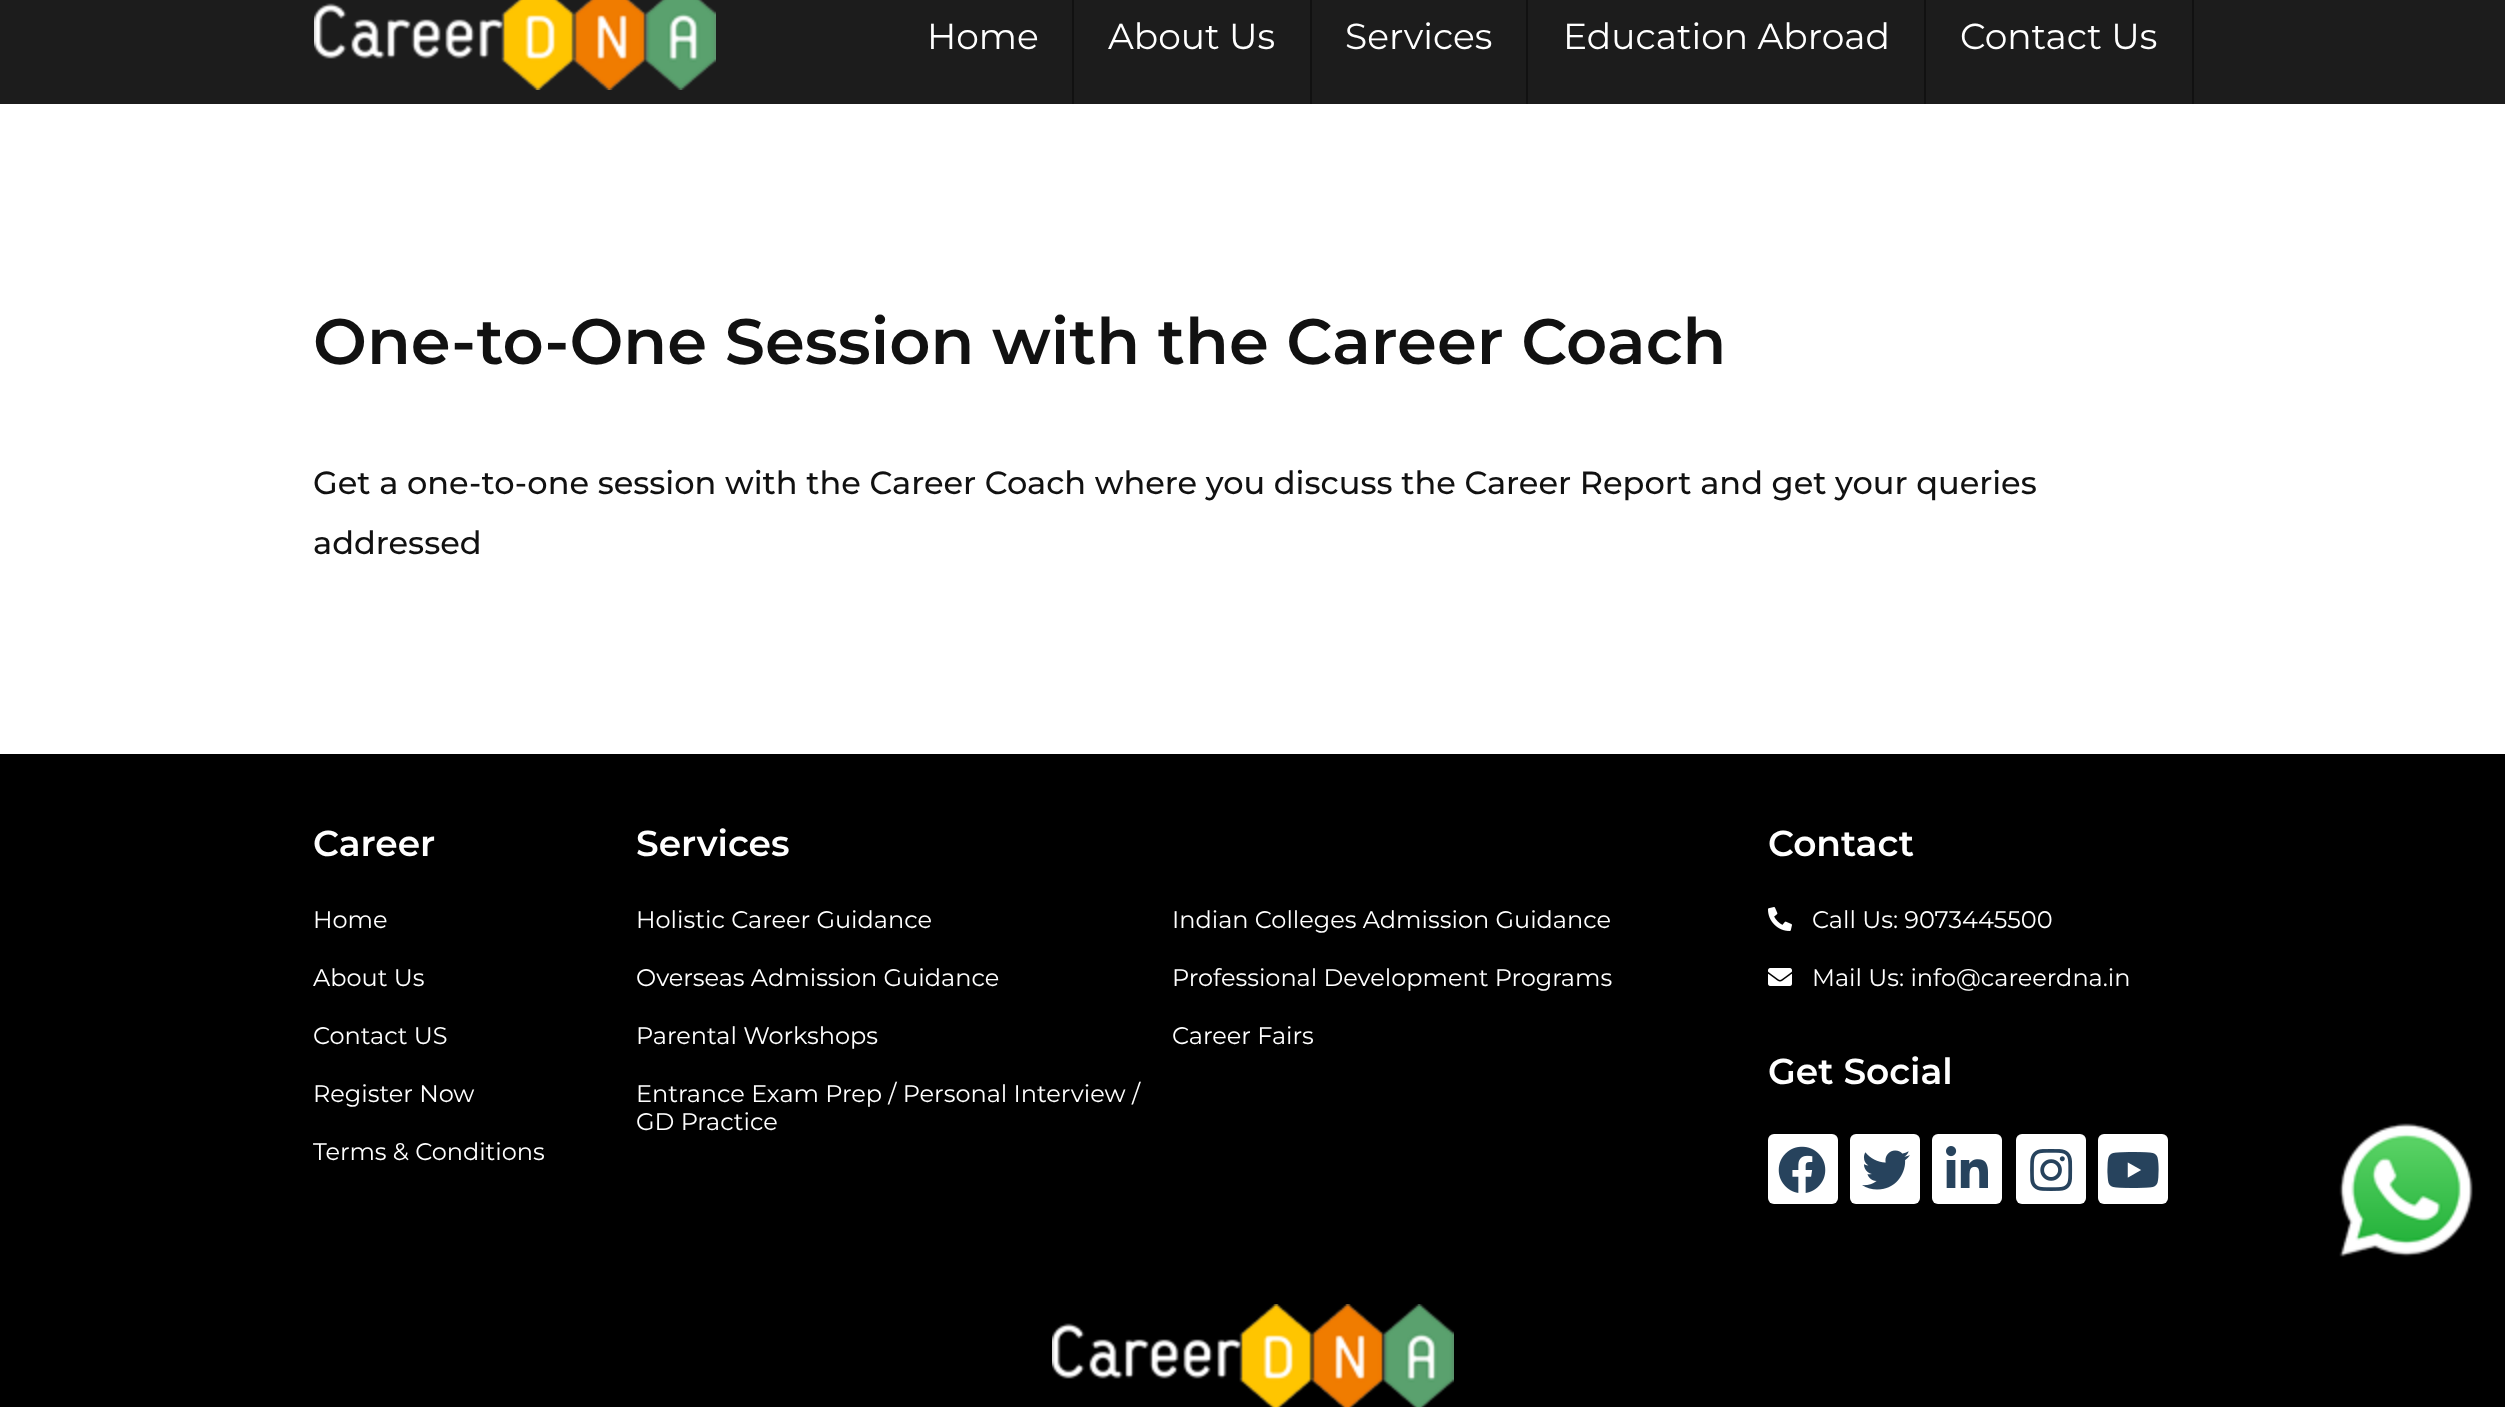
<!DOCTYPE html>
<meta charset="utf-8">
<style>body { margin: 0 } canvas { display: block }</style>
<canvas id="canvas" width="2505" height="1407"></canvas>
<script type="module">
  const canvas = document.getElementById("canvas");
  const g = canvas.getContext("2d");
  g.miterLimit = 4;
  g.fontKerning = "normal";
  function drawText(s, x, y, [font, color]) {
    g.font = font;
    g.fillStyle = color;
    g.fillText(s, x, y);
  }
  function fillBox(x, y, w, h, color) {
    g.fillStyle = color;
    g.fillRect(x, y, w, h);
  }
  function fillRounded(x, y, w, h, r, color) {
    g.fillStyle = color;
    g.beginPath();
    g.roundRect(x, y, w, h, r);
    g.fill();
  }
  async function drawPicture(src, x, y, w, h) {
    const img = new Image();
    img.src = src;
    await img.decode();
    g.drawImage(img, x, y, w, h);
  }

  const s1 = ["36px Montserrat", "#FFFFFF"];
  const s2 = ["600 64px Montserrat", "#111111"];
  const s3 = ["500 32px Montserrat", "#111111"];
  const s4 = ["600 36px Montserrat", "#FFFFFF"];
  const s5 = ["24px Montserrat", "#FFFFFF"];

  fillBox(0, 0, 2505, 1407, "#FFFFFF");
  fillBox(0, 0, 2505, 104, "#1C1C1C");
  await drawPicture("pic1.png", 314, 0, 402, 90);
  fillBox(1072, 0, 2, 104, "#111111");
  drawText("Home", 927, 49, s1);
  fillBox(1310, 0, 2, 104, "#111111");
  drawText("About Us", 1108, 49, s1);
  fillBox(1526, 0, 2, 104, "#111111");
  drawText("Services", 1345, 49, s1);
  fillBox(1924, 0, 2, 104, "#111111");
  drawText("Education Abroad", 1563, 49, s1);
  fillBox(2192, 0, 2, 104, "#111111");
  drawText("Contact Us", 1960, 49, s1);
  drawText("One-to-One Session with the Career Coach", 313, 364, s2);
  drawText("Get a one-to-one session with the Career Coach where you discuss the Career Report and get your queries", 313, 494, s3);
  drawText("addressed", 313, 554, s3);
  fillBox(0, 754, 2505, 653, "#000000");
  drawText("Career", 313, 856, s4);
  drawText("Home", 313, 928, s5);
  drawText("About Us", 313, 986, s5);
  drawText("Contact US", 313, 1044, s5);
  drawText("Register Now", 313, 1102, s5);
  drawText("Terms & Conditions", 313, 1160, s5);
  drawText("Services", 636, 856, s4);
  drawText("Holistic Career Guidance", 636, 928, s5);
  drawText("Indian Colleges Admission Guidance", 1172, 928, s5);
  drawText("Overseas Admission Guidance", 636, 986, s5);
  drawText("Professional Development Programs", 1172, 986, s5);
  drawText("Parental Workshops", 636, 1044, s5);
  drawText("Career Fairs", 1172, 1044, s5);
  drawText("Entrance Exam Prep / Personal Interview /", 636, 1102, s5);
  drawText("GD Practice", 636, 1130, s5);
  drawText("Contact", 1768, 856, s4);
  await drawPicture("pic2.png", 1768, 907, 24, 24);
  drawText("Call Us: 9073445500", 1812, 928, s5);
  await drawPicture("pic3.png", 1768, 968, 24, 18);
  drawText("Mail Us: info@careerdna.in", 1812, 986, s5);
  drawText("Get Social", 1768, 1084, s4);
  fillRounded(1768, 1134, 70, 70, 6, "#FFFFFF");
  await drawPicture("pic4.png", 1778, 1146, 48, 47);
  fillRounded(1850, 1134, 70, 70, 6, "#FFFFFF");
  await drawPicture("pic5.png", 1862, 1150, 48, 40);
  fillRounded(1932, 1134, 70, 70, 6, "#FFFFFF");
  await drawPicture("pic6.png", 1946, 1146, 42, 42);
  fillRounded(2016, 1134, 70, 70, 6, "#FFFFFF");
  await drawPicture("pic7.png", 2030, 1149, 43, 42);
  fillRounded(2098, 1134, 70, 70, 6, "#FFFFFF");
  await drawPicture("pic8.png", 2107, 1152, 52, 36);
  await drawPicture("pic9.png", 1052, 1304, 402, 103);
  await drawPicture("pic10.png", 2339, 1123, 134, 134);
</script>
